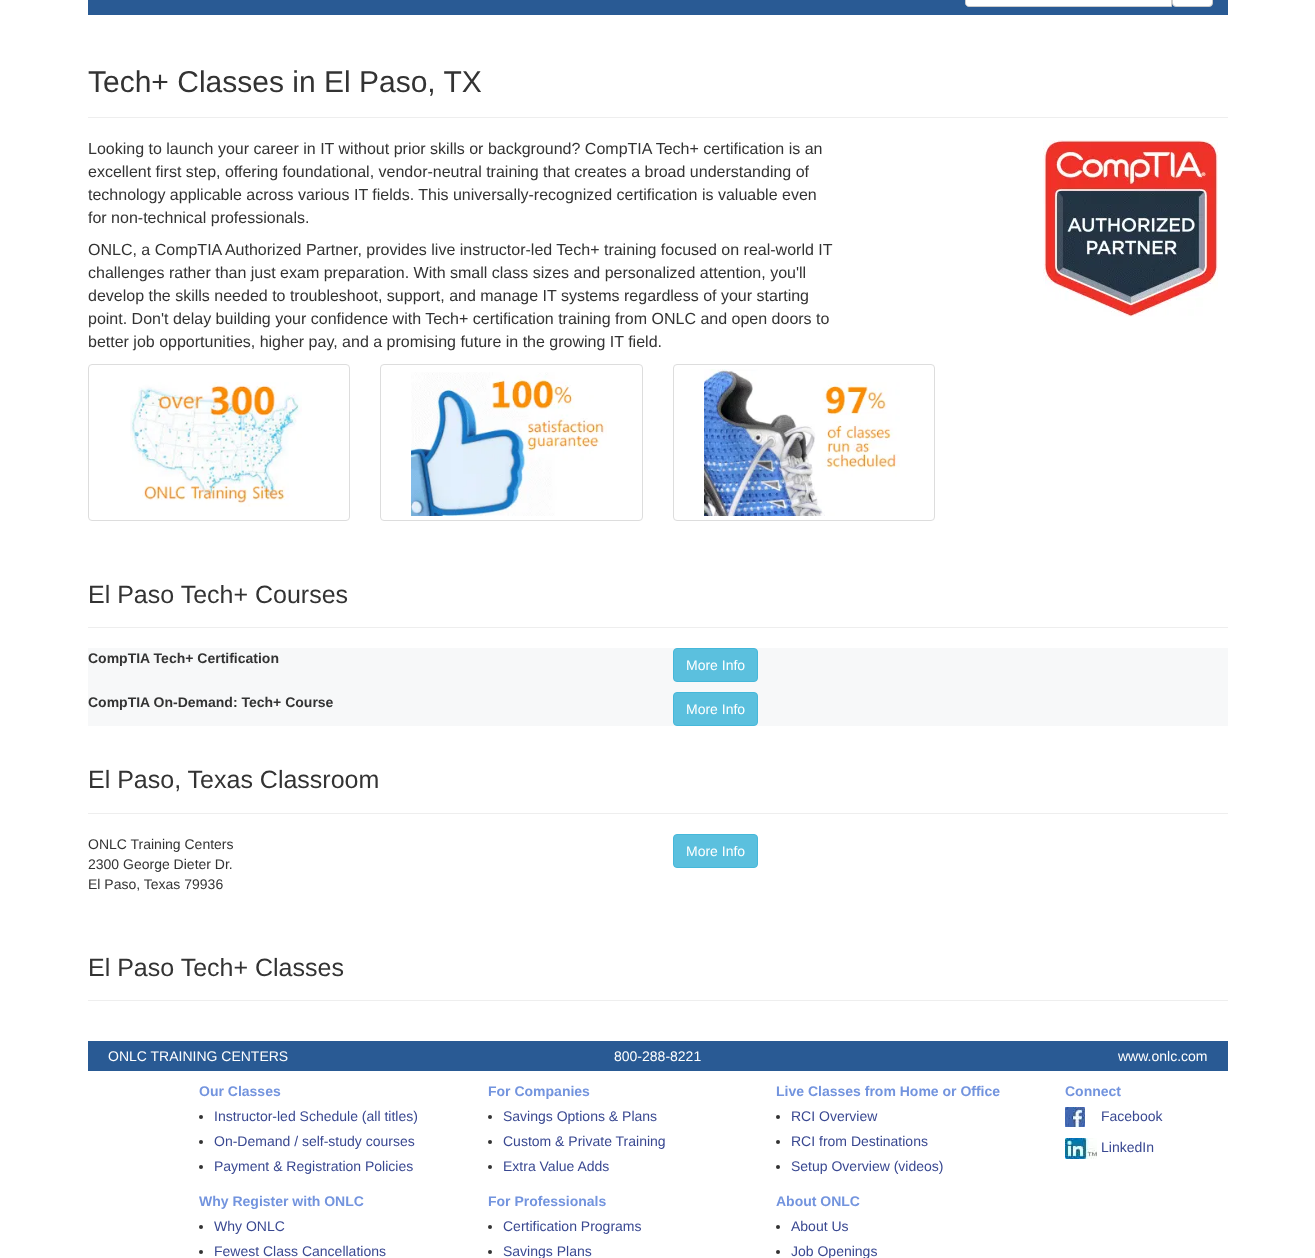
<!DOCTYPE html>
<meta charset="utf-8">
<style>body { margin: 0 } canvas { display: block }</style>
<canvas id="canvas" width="1315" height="1258"></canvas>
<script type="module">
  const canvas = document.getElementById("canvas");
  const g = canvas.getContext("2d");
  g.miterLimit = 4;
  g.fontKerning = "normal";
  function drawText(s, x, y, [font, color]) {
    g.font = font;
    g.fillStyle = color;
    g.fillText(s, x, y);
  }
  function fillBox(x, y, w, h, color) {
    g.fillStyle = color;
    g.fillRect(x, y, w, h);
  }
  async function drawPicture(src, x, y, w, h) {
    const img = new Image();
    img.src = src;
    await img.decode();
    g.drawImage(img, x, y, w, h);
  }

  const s1 = ["30px Liberation Sans", "#333333"];
  const s2 = ["16px Liberation Sans", "#333333"];
  const s3 = ["25px Liberation Sans", "#333333"];
  const s4 = ["bold 14px Liberation Sans", "#333333"];
  const s5 = ["14px Liberation Sans", "#FFFFFF"];
  const s6 = ["14px Liberation Sans", "#333333"];
  const s7 = ["bold 14px Liberation Sans", "#7394DE"];
  const s8 = ["14px Liberation Sans", "#394891"];

  fillBox(0, 0, 1315, 1258, "#FFFFFF");
  fillBox(88, 0, 1140, 15, "#295A94");
  g.fillStyle = "#FFFFFF";
  g.beginPath();
  g.moveTo(969, -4.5);
  g.lineTo(1171.5, -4.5);
  g.lineTo(1171.5, 6.5);
  g.lineTo(969, 6.5);
  g.bezierCurveTo(967, 6.5, 965.5, 5, 965.5, 3);
  g.lineTo(965.5, -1);
  g.bezierCurveTo(965.5, -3, 967, -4.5, 969, -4.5);
  g.closePath();
  g.fill();
  g.strokeStyle = "#CCCCCC";
  g.stroke();
  g.beginPath();
  g.roundRect(1172.5, -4.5, 40, 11, 3.5);
  g.fill();
  g.stroke();
  fillBox(88, 117, 1140, 1, "#EEEEEE");
  drawText("Tech+ Classes in El Paso, TX", 88, 92, s1);
  drawText("Looking to launch your career in IT without prior skills or background? CompTIA Tech+ certification is an", 88, 154, s2);
  drawText("excellent first step, offering foundational, vendor-neutral training that creates a broad understanding of", 88, 177, s2);
  drawText("technology applicable across various IT fields. This universally-recognized certification is valuable even", 88, 200, s2);
  drawText("for non-technical professionals.", 88, 223, s2);
  drawText("ONLC, a CompTIA Authorized Partner, provides live instructor-led Tech+ training focused on real-world IT", 88, 255, s2);
  drawText("challenges rather than just exam preparation. With small class sizes and personalized attention, you'll", 88, 278, s2);
  drawText("develop the skills needed to troubleshoot, support, and manage IT systems regardless of your starting", 88, 301, s2);
  drawText("point. Don't delay building your confidence with Tech+ certification training from ONLC and open doors to", 88, 324, s2);
  drawText("better job opportunities, higher pay, and a promising future in the growing IT field.", 88, 347, s2);
  await drawPicture("pic1.png", 1043, 140, 175, 177);
  g.beginPath();
  g.roundRect(88.5, 364.5, 261, 156, 3.5);
  g.strokeStyle = "#DDDDDD";
  g.stroke();
  await drawPicture("pic2.png", 130, 382, 172, 125);
  g.beginPath();
  g.roundRect(380.5, 364.5, 262, 156, 3.5);
  g.stroke();
  await drawPicture("pic3.png", 411, 372, 196, 144);
  g.beginPath();
  g.roundRect(673.5, 364.5, 261, 156, 3.5);
  g.stroke();
  await drawPicture("pic4.png", 704, 369, 196, 147);
  fillBox(88, 627, 1140, 1, "#EEEEEE");
  drawText("El Paso Tech+ Courses", 88, 603, s3);
  fillBox(88, 648, 1140, 78, "#F7F8F9");
  drawText("CompTIA Tech+ Certification", 88, 663, s4);
  g.fillStyle = "#5BC0DE";
  g.beginPath();
  g.roundRect(673.5, 648.5, 84, 33, 3.5);
  g.fill();
  g.strokeStyle = "#46B8DA";
  g.stroke();
  drawText("More Info", 686, 670, s5);
  drawText("CompTIA On-Demand: Tech+ Course", 88, 707, s4);
  g.fillStyle = "#5BC0DE";
  g.beginPath();
  g.roundRect(673.5, 692.5, 84, 33, 3.5);
  g.fill();
  g.stroke();
  drawText("More Info", 686, 714, s5);
  fillBox(88, 813, 1140, 1, "#EEEEEE");
  drawText("El Paso, Texas Classroom", 88, 788, s3);
  drawText("ONLC Training Centers", 88, 849, s6);
  drawText("2300 George Dieter Dr.", 88, 869, s6);
  drawText("El Paso, Texas 79936", 88, 889, s6);
  g.fillStyle = "#5BC0DE";
  g.beginPath();
  g.roundRect(673.5, 834.5, 84, 33, 3.5);
  g.fill();
  g.stroke();
  drawText("More Info", 686, 856, s5);
  fillBox(88, 1000, 1140, 1, "#EEEEEE");
  drawText("El Paso Tech+ Classes", 88, 976, s3);
  fillBox(88, 1041, 1140, 30, "#295A94");
  drawText("ONLC TRAINING CENTERS", 108, 1061, s5);
  drawText("800-288-8221", 614, 1061, s5);
  drawText("www.onlc.com", 1118, 1061, s5);
  drawText("Our Classes", 199, 1096, s7);
  g.fillStyle = "#333333";
  g.beginPath();
  g.arc(201, 1117, 2, 0, Math.PI * 2);
  g.fill();
  drawText("Instructor-led Schedule (all titles)", 214, 1121, s8);
  g.fillStyle = "#333333";
  g.beginPath();
  g.arc(201, 1142, 2, 0, Math.PI * 2);
  g.fill();
  drawText("On-Demand / self-study courses", 214, 1146, s8);
  g.fillStyle = "#333333";
  g.beginPath();
  g.arc(201, 1167, 2, 0, Math.PI * 2);
  g.fill();
  drawText("Payment & Registration Policies", 214, 1171, s8);
  drawText("Why Register with ONLC", 199, 1206, s7);
  g.fillStyle = "#333333";
  g.beginPath();
  g.arc(201, 1227, 2, 0, Math.PI * 2);
  g.fill();
  drawText("Why ONLC", 214, 1231, s8);
  g.fillStyle = "#333333";
  g.beginPath();
  g.arc(201, 1252, 2, 0, Math.PI * 2);
  g.fill();
  drawText("Fewest Class Cancellations", 214, 1256, s8);
  drawText("For Companies", 488, 1096, s7);
  g.fillStyle = "#333333";
  g.beginPath();
  g.arc(490, 1117, 2, 0, Math.PI * 2);
  g.fill();
  drawText("Savings Options & Plans", 503, 1121, s8);
  g.fillStyle = "#333333";
  g.beginPath();
  g.arc(490, 1142, 2, 0, Math.PI * 2);
  g.fill();
  drawText("Custom & Private Training", 503, 1146, s8);
  g.fillStyle = "#333333";
  g.beginPath();
  g.arc(490, 1167, 2, 0, Math.PI * 2);
  g.fill();
  drawText("Extra Value Adds", 503, 1171, s8);
  drawText("For Professionals", 488, 1206, s7);
  g.fillStyle = "#333333";
  g.beginPath();
  g.arc(490, 1227, 2, 0, Math.PI * 2);
  g.fill();
  drawText("Certification Programs", 503, 1231, s8);
  g.fillStyle = "#333333";
  g.beginPath();
  g.arc(490, 1252, 2, 0, Math.PI * 2);
  g.fill();
  drawText("Savings Plans", 503, 1256, s8);
  drawText("Live Classes from Home or Office", 776, 1096, s7);
  g.fillStyle = "#333333";
  g.beginPath();
  g.arc(778, 1117, 2, 0, Math.PI * 2);
  g.fill();
  drawText("RCI Overview", 791, 1121, s8);
  g.fillStyle = "#333333";
  g.beginPath();
  g.arc(778, 1142, 2, 0, Math.PI * 2);
  g.fill();
  drawText("RCI from Destinations", 791, 1146, s8);
  g.fillStyle = "#333333";
  g.beginPath();
  g.arc(778, 1167, 2, 0, Math.PI * 2);
  g.fill();
  drawText("Setup Overview (videos)", 791, 1171, s8);
  drawText("About ONLC", 776, 1206, s7);
  g.fillStyle = "#333333";
  g.beginPath();
  g.arc(778, 1227, 2, 0, Math.PI * 2);
  g.fill();
  drawText("About Us", 791, 1231, s8);
  g.fillStyle = "#333333";
  g.beginPath();
  g.arc(778, 1252, 2, 0, Math.PI * 2);
  g.fill();
  drawText("Job Openings", 791, 1256, s8);
  drawText("Connect", 1065, 1096, s7);
  await drawPicture("pic5.png", 1065, 1107, 20, 20);
  drawText("Facebook", 1101, 1121, s8);
  await drawPicture("pic6.png", 1065, 1138, 32, 21);
  drawText("LinkedIn", 1101, 1152, s8);
</script>
